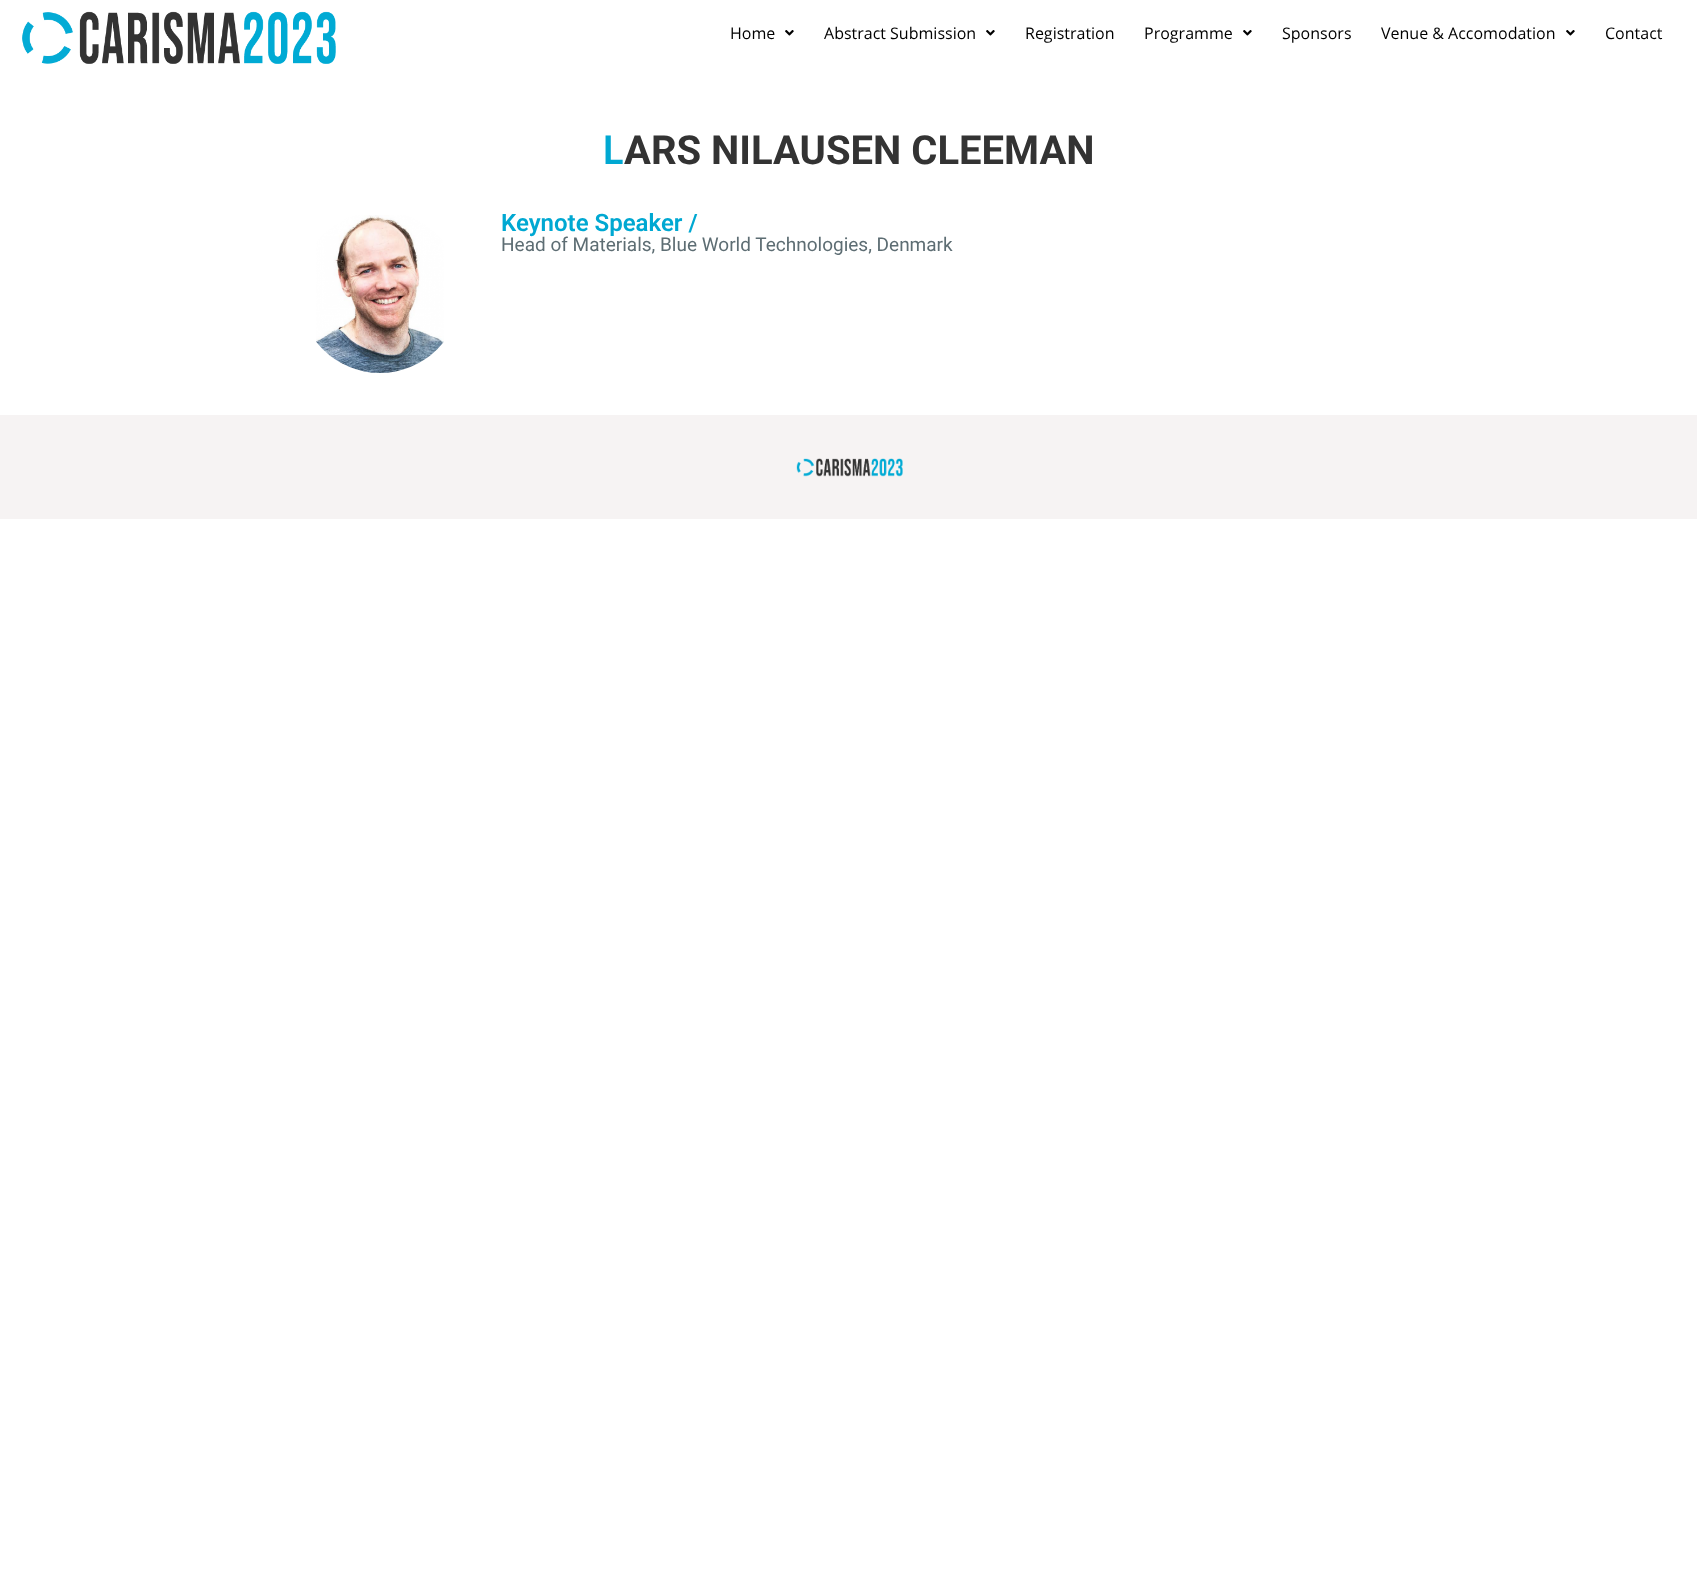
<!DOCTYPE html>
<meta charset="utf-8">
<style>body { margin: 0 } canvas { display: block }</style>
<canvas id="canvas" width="1697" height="1573"></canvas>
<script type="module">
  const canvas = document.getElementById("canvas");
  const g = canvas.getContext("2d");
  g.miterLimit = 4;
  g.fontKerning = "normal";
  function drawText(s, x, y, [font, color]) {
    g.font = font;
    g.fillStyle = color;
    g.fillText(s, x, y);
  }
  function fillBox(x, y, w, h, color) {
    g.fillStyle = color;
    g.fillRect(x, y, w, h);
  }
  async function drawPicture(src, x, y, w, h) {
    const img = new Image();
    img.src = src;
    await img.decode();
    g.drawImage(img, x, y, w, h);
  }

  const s1 = ["16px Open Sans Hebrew", "#000000"];
  const s2 = ["600 40px Noto Sans", "#00A8D2"];
  const s3 = ["bold 40px Roboto", "#333333"];
  const s4 = ["600 24px Roboto", "#00A8D2"];
  const s5 = ["19px Roboto", "#5D6D73"];

  fillBox(0, 0, 1697, 1573, "#FFFFFF");
  await drawPicture("pic1.png", 22, 11, 314, 53);
  drawText("Home", 730, 39, s1);
  await drawPicture("pic2.png", 785, 30, 9, 6);
  drawText("Abstract Submission", 824, 39, s1);
  await drawPicture("pic2.png", 986, 30, 9, 6);
  drawText("Registration", 1025, 39, s1);
  drawText("Programme", 1144, 39, s1);
  await drawPicture("pic2.png", 1243, 30, 9, 6);
  drawText("Sponsors", 1282, 39, s1);
  drawText("Venue & Accomodation", 1381, 39, s1);
  await drawPicture("pic2.png", 1566, 30, 9, 6);
  drawText("Contact", 1605, 39, s1);
  drawText("L", 602, 164, s2);
  drawText("ARS NILAUSEN CLEEMAN", 624, 164, s3);
  await drawPicture("pic3.png", 316, 215, 128, 158);
  drawText("Keynote Speaker /", 501, 231, s4);
  drawText("Head of Materials, Blue World Technologies, Denmark", 501, 251, s5);
  fillBox(0, 415, 1697, 104, "#F6F3F3");
  await drawPicture("pic4.png", 796, 458, 107, 19);
</script>
